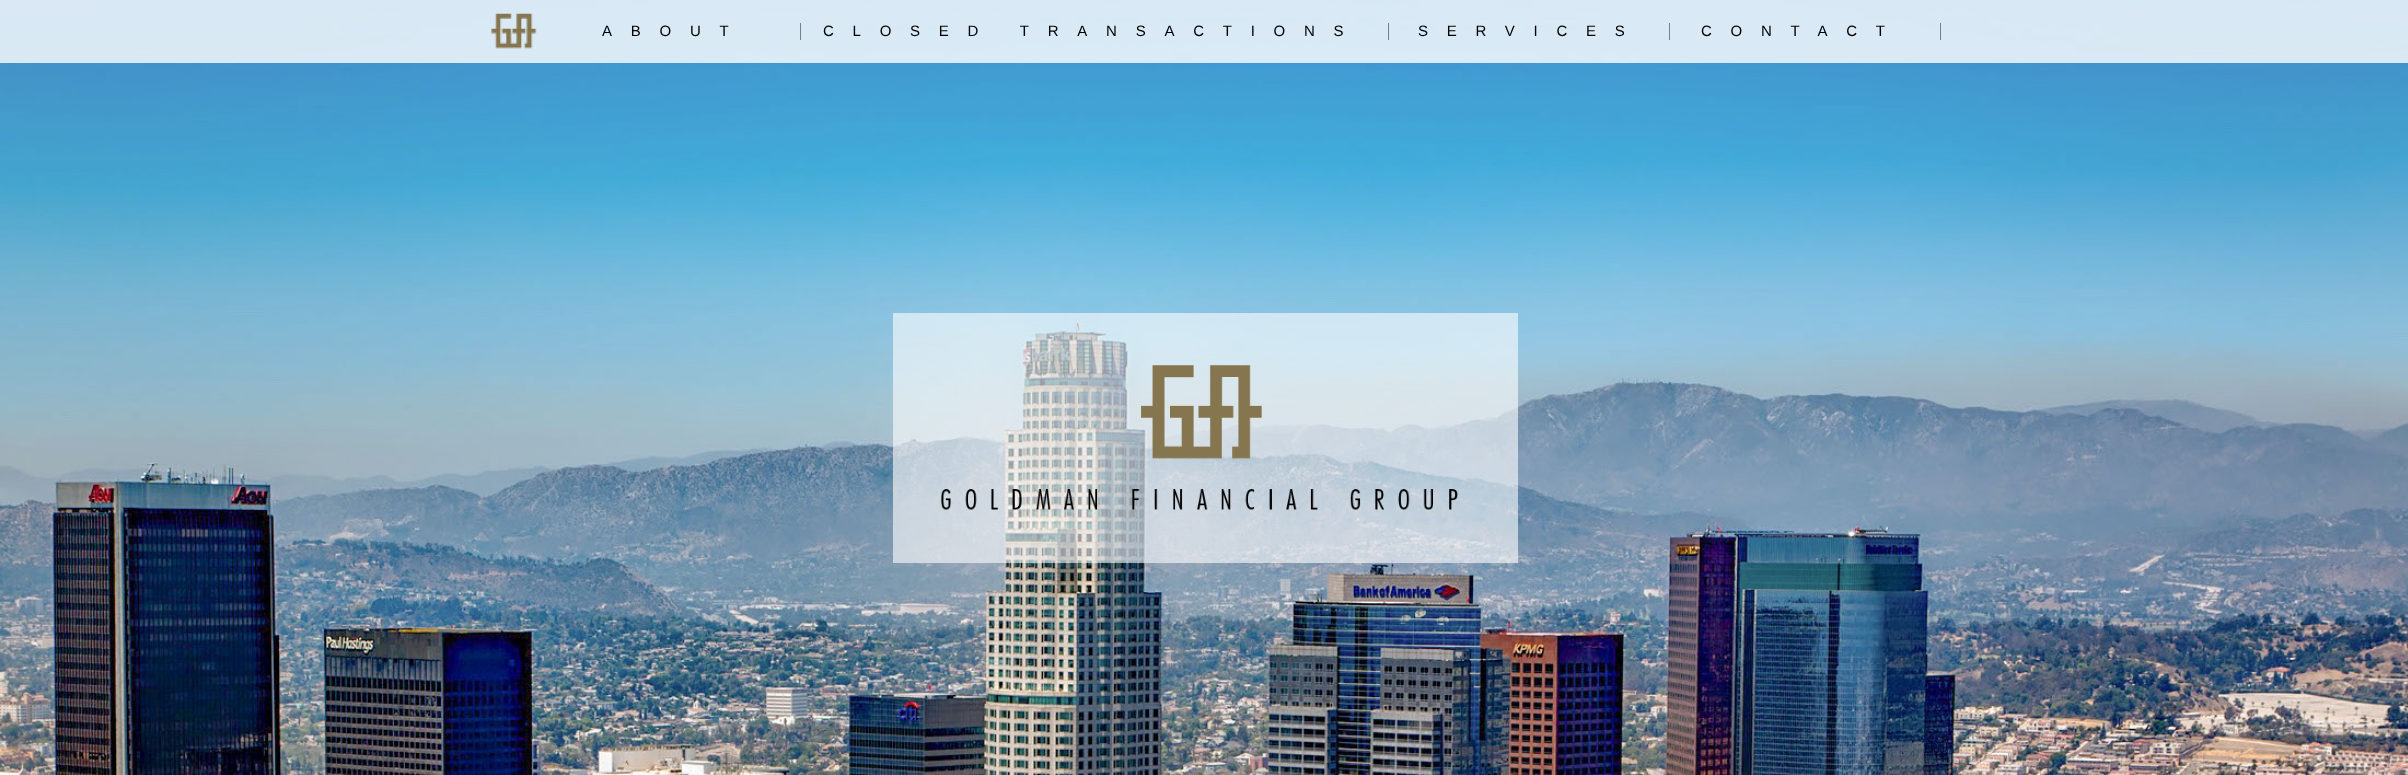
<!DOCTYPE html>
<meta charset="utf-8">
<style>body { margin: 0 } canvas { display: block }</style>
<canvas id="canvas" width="2408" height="775"></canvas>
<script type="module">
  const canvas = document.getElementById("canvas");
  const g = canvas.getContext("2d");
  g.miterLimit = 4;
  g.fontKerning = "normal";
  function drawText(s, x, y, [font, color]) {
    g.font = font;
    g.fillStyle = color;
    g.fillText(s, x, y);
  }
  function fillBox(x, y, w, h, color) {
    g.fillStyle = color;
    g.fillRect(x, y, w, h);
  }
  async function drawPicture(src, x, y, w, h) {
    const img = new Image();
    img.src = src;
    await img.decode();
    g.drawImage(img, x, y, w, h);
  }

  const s1 = ["15px Liberation Sans", "#000000"];

  fillBox(0, 0, 2408, 775, "#FFFFFF");
  await drawPicture("pic1.png", 0, 0, 2408, 775);
  fillBox(893, 313, 625, 250, "rgba(255, 255, 255, 0.6)");
  await drawPicture("pic2.png", 940, 365, 518, 145);
  fillBox(0, 0, 2408, 63, "rgba(255, 255, 255, 0.8)");
  await drawPicture("pic3.png", 491, 13, 46, 36);
  fillBox(800, 23, 1, 17, "#7F7F7F");
  g.letterSpacing = "18.75px";
  drawText("ABOUT", 602, 36, s1);
  fillBox(1388, 23, 1, 17, "#7F7F7F");
  drawText("CLOSED TRANSACTIONS", 823, 36, s1);
  fillBox(1669, 23, 1, 17, "#7F7F7F");
  drawText("SERVICES", 1418, 36, s1);
  fillBox(1940, 23, 1, 17, "#7F7F7F");
  drawText("CONTACT", 1701, 36, s1);
</script>
